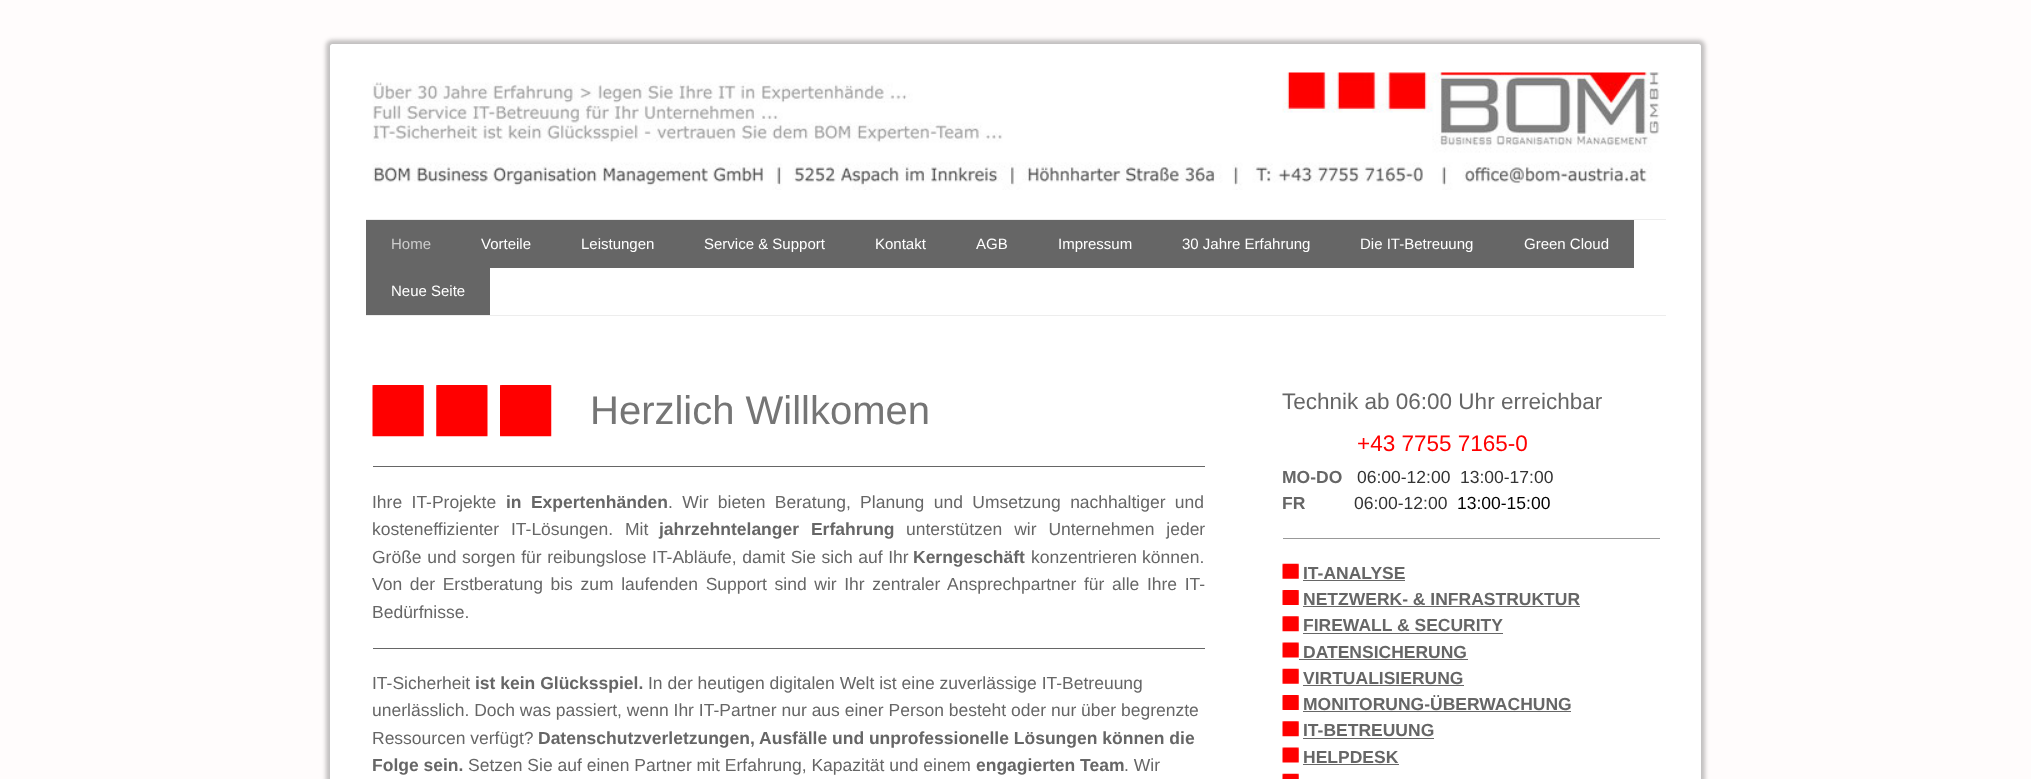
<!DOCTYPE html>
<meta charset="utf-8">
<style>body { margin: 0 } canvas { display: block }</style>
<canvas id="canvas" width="2031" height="779"></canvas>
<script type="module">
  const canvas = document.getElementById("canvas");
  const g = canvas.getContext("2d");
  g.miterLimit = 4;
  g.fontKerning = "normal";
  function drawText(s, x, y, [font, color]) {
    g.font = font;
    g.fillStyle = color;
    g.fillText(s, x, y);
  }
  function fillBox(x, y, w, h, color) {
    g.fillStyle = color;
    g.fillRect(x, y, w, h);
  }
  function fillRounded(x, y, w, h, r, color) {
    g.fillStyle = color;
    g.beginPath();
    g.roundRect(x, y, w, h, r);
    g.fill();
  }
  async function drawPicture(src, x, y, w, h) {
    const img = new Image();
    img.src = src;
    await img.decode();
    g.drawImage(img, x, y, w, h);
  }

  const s1 = ["15px Liberation Sans", "#CCCCCC"];
  const s2 = ["15px Liberation Sans", "#FFFFFF"];
  const s3 = ["40px Liberation Sans", "#757575"];
  const s4 = ["17.5px Liberation Sans", "#666666"];
  const s5 = ["bold 17.5px Liberation Sans", "#666666"];
  const s6 = ["22.5px Liberation Sans", "#666666"];
  const s7 = ["22.5px Liberation Sans", "#FF0000"];
  const s8 = ["17.5px Liberation Sans", "#333333"];
  const s9 = ["17.5px Liberation Sans", "#000000"];

  fillBox(0, 0, 2031, 779, "#FFFCFC");
  g.fillStyle = "rgba(51, 51, 51, 0.3)";
  g.filter = "blur(2px)";
  g.beginPath();
  g.roundRect(326, 40, 1379, 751, 6);
  g.fill();
  g.filter = "none";
  fillRounded(330, 44, 1371, 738, 2.5, "#FFFFFF");
  await drawPicture("pic1.png", 372, 72, 1288, 118);
  fillBox(366, 219, 1300, 1, "#EDEDED");
  fillBox(366, 315, 1300, 1, "#EDEDED");
  fillBox(366, 220, 1268, 48, "#666666");
  drawText("Home", 391, 249, s1);
  drawText("Vorteile", 481, 249, s2);
  drawText("Leistungen", 581, 249, s2);
  drawText("Service & Support", 704, 249, s2);
  drawText("Kontakt", 875, 249, s2);
  drawText("AGB", 976, 249, s2);
  drawText("Impressum", 1058, 249, s2);
  drawText("30 Jahre Erfahrung", 1182, 249, s2);
  drawText("Die IT-Betreuung", 1360, 249, s2);
  drawText("Green Cloud", 1524, 249, s2);
  fillBox(366, 268, 124, 47, "#666666");
  drawText("Neue Seite", 391, 296, s2);
  await drawPicture("pic2.png", 372, 385, 52, 52);
  await drawPicture("pic3.png", 436, 385, 52, 52);
  await drawPicture("pic4.png", 500, 385, 52, 52);
  drawText("Herzlich Willkomen", 590, 424, s3);
  fillBox(373, 466, 832, 1, "#666666");
  g.wordSpacing = "4.5px";
  drawText("Ihre IT-Projekte", 372, 508, s4);
  drawText("in Expertenhänden", 506, 508, s5);
  drawText(". Wir bieten Beratung, Planung und Umsetzung nachhaltiger und", 668, 508, s4);
  g.wordSpacing = "7px";
  drawText("kosteneffizienter IT-Lösungen. Mit", 372, 535, s4);
  drawText("jahrzehntelanger Erfahrung", 659, 535, s5);
  drawText("unterstützen wir Unternehmen jeder", 906, 535, s4);
  g.wordSpacing = "0.75px";
  drawText("Größe und sorgen für reibungslose IT-Abläufe, damit Sie sich auf Ihr", 372, 563, s4);
  g.wordSpacing = "0px";
  drawText("Kerngeschäft", 913, 563, s5);
  drawText("konzentrieren", 1031, 563, s4);
  drawText("können.", 1142, 563, s4);
  g.wordSpacing = "2.75px";
  drawText("Von der Erstberatung bis zum laufenden Support sind wir Ihr zentraler Ansprechpartner für alle Ihre IT-", 372, 590, s4);
  g.wordSpacing = "0px";
  drawText("Bedürfnisse.", 372, 618, s4);
  fillBox(373, 648, 832, 1, "#666666");
  drawText("IT-Sicherheit", 372, 689, s4);
  drawText("ist kein Glücksspiel.", 475, 689, s5);
  drawText("In der heutigen digitalen Welt ist eine zuverlässige IT-Betreuung", 648, 689, s4);
  drawText("unerlässlich. Doch was passiert, wenn Ihr IT-Partner nur aus einer Person besteht oder nur über begrenzte", 372, 716, s4);
  drawText("Ressourcen verfügt?", 372, 744, s4);
  drawText("Datenschutzverletzungen, Ausfälle und unprofessionelle Lösungen können die", 538, 744, s5);
  drawText("Folge sein.", 372, 771, s5);
  drawText("Setzen Sie auf einen Partner mit Erfahrung, Kapazität und einem", 468, 771, s4);
  drawText("engagierten Team", 976, 771, s5);
  drawText(". Wir", 1124, 771, s4);
  drawText("Technik ab 06:00 Uhr erreichbar", 1282, 409, s6);
  drawText("+43 7755 7165-0", 1357, 451, s7);
  drawText("MO-DO", 1282, 483, s5);
  drawText("06:00-12:00", 1357, 483, s8);
  drawText("13:00-17:00", 1460, 483, s8);
  drawText("FR", 1282, 509, s5);
  drawText("06:00-12:00", 1354, 509, s8);
  drawText("13:00-15:00", 1457, 509, s9);
  fillBox(1283, 538, 377, 1, "#999999");
  await drawPicture("pic5.png", 1282, 563, 17, 16);
  drawText("IT-ANALYSE", 1303, 579, s5);
  fillBox(1303, 580, 102, 1, "#666666");
  await drawPicture("pic6.png", 1282, 590, 17, 15);
  drawText("NETZWERK- & INFRASTRUKTUR", 1303, 605, s5);
  fillBox(1303, 606, 277, 1, "#666666");
  await drawPicture("pic7.png", 1282, 616, 17, 16);
  drawText("FIREWALL & SECURITY", 1303, 631, s5);
  fillBox(1303, 633, 200, 1, "#666666");
  await drawPicture("pic8.png", 1282, 642, 17, 16);
  drawText("DATENSICHERUNG", 1303, 658, s5);
  fillBox(1299, 659, 169, 1, "#666666");
  await drawPicture("pic5.png", 1282, 668, 17, 16);
  drawText("VIRTUALISIERUNG", 1303, 684, s5);
  fillBox(1303, 685, 161, 1, "#666666");
  await drawPicture("pic6.png", 1282, 695, 17, 15);
  drawText("MONITORUNG-ÜBERWACHUNG", 1303, 710, s5);
  fillBox(1303, 711, 268, 1, "#666666");
  await drawPicture("pic7.png", 1282, 721, 17, 16);
  drawText("IT-BETREUUNG", 1303, 736, s5);
  fillBox(1303, 738, 131, 1, "#666666");
  await drawPicture("pic8.png", 1282, 747, 17, 16);
  drawText("HELPDESK", 1303, 763, s5);
  fillBox(1303, 764, 96, 1, "#666666");
  await drawPicture("pic9.png", 1282, 773, 17, 6);
</script>
